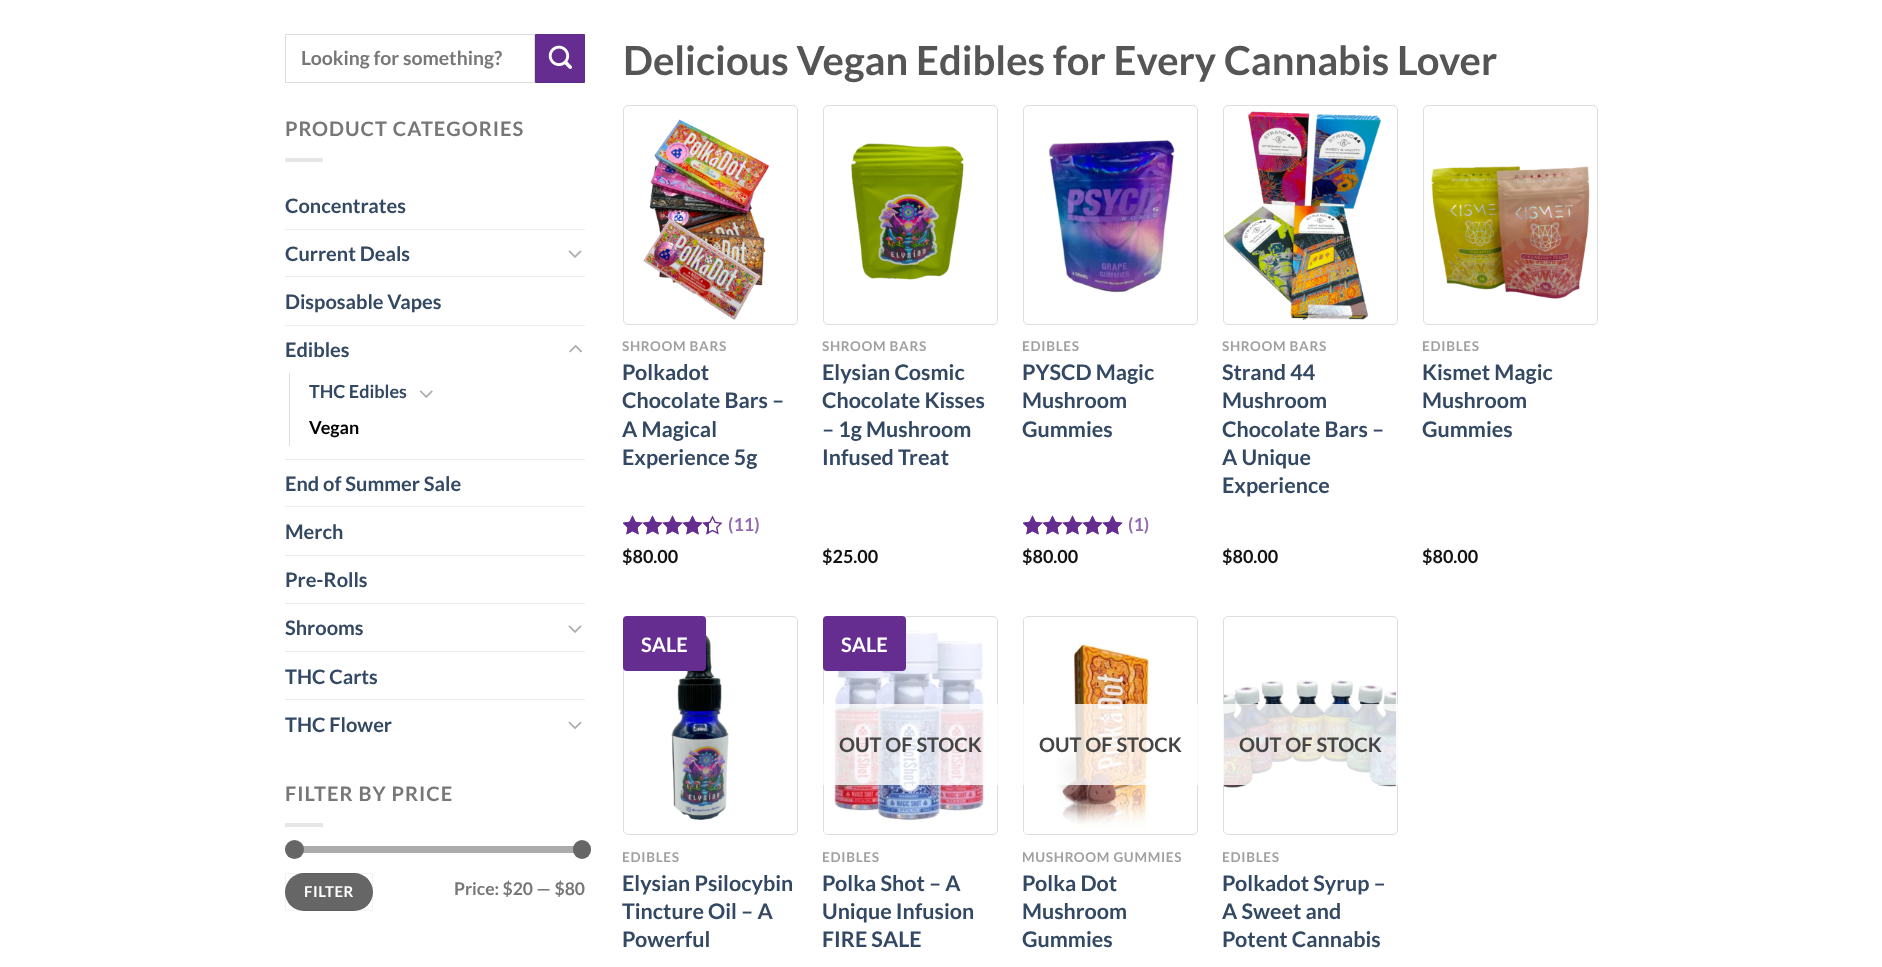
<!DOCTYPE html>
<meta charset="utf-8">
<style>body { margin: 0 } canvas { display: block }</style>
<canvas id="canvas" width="1882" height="967"></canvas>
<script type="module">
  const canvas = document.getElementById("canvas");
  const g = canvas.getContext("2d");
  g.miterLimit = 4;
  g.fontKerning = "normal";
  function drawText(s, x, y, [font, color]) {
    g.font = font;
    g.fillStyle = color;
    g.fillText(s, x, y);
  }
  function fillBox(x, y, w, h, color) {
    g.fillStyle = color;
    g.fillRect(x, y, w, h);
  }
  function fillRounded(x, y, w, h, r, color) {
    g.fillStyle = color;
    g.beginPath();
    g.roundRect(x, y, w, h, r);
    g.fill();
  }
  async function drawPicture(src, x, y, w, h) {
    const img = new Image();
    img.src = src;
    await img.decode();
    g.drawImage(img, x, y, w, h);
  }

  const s1 = ["bold 19.4px Lato", "#777777"];
  const s2 = ["bold 20px Lato", "#777777"];
  const s3 = ["bold 20px Lato", "#334862"];
  const s4 = ["bold 18px Lato", "#334862"];
  const s5 = ["bold 18px Lato", "#000000"];
  const s6 = ["bold 15px Lato", "#FFFFFF"];
  const s7 = ["bold 17.5px Lato", "#777777"];
  const s8 = ["bold 40px Lato", "#555555"];
  const s9 = ["bold 13.5px Lato", "#A0A0A0"];
  const s10 = ["bold 21.5px Lato", "#334862"];
  const s11 = ["bold 18px Lato", "#946CB1"];
  const s12 = ["bold 18px Lato", "#111111"];
  const s13 = ["bold 20px Lato", "#FFFFFF"];
  const s14 = ["bold 20px Lato", "#454545"];

  fillBox(0, 0, 1882, 967, "#FFFFFF");
  g.strokeStyle = "#DDDDDD";
  g.strokeRect(285.5, 34.5, 249, 48);
  drawText("Looking for something?", 301, 65, s1);
  g.fillStyle = "#662D90";
  g.beginPath();
  g.rect(535.5, 34.5, 49, 48);
  g.fill();
  g.strokeStyle = "#612B89";
  g.stroke();
  await drawPicture("pic1.png", 548, 45, 24, 24);
  g.letterSpacing = "1px";
  drawText("PRODUCT CATEGORIES", 285, 136, s2);
  fillBox(285, 158, 38, 4, "#E6E6E6");
  g.letterSpacing = "0px";
  drawText("Concentrates", 285, 213, s3);
  fillBox(285, 229, 300, 1, "#ECECEC");
  drawText("Current Deals", 285, 261, s3);
  await drawPicture("pic2.png", 568, 250, 14, 8);
  fillBox(285, 276, 300, 1, "#ECECEC");
  drawText("Disposable Vapes", 285, 309, s3);
  fillBox(285, 325, 300, 1, "#ECECEC");
  drawText("Edibles", 285, 357, s3);
  await drawPicture("pic3.png", 569, 344, 13, 9);
  fillBox(289, 373, 1, 73, "#DDDDDD");
  drawText("THC Edibles", 309, 398, s4);
  await drawPicture("pic4.png", 419, 390, 14, 8);
  drawText("Vegan", 309, 434, s5);
  fillBox(285, 459, 300, 1, "#ECECEC");
  drawText("End of Summer Sale", 285, 491, s3);
  fillBox(285, 506, 300, 1, "#ECECEC");
  drawText("Merch", 285, 539, s3);
  fillBox(285, 555, 300, 1, "#ECECEC");
  drawText("Pre-Rolls", 285, 587, s3);
  fillBox(285, 603, 300, 1, "#ECECEC");
  drawText("Shrooms", 285, 635, s3);
  await drawPicture("pic2.png", 568, 625, 14, 8);
  fillBox(285, 651, 300, 1, "#ECECEC");
  drawText("THC Carts", 285, 684, s3);
  fillBox(285, 699, 300, 1, "#ECECEC");
  drawText("THC Flower", 285, 732, s3);
  await drawPicture("pic5.png", 568, 721, 14, 9);
  g.letterSpacing = "1px";
  drawText("FILTER BY PRICE", 285, 801, s2);
  fillBox(285, 823, 38, 4, "#E6E6E6");
  fillRounded(285, 846, 300, 7, 3.5, "#F1F1F1");
  fillRounded(285, 846, 300, 7, 3.5, "rgba(102, 102, 102, 0.5)");
  g.fillStyle = "#666666";
  g.beginPath();
  g.arc(294.5, 849.5, 9.5, 0, Math.PI * 2);
  g.fill();
  fillRounded(573, 840, 18, 19, 9, "#666666");
  fillRounded(285, 873, 88, 38, 19, "#666666");
  g.strokeStyle = "rgba(0, 0, 0, 0.05)";
  g.strokeRect(285.5, 873.5, 87, 37);
  g.letterSpacing = "0.5px";
  drawText("FILTER", 304, 897, s6);
  g.letterSpacing = "0px";
  drawText("Price: $20 — $80", 454, 895, s7);
  drawText("Delicious Vegan Edibles for Every Cannabis Lover", 623, 75, s8);
  g.beginPath();
  g.roundRect(623.5, 105.5, 174, 219, 4.5);
  g.strokeStyle = "#DDDDDD";
  g.stroke();
  await drawPicture("pic6.png", 643, 119, 127, 201);
  g.letterSpacing = "0.7px";
  drawText("SHROOM BARS", 622, 351, s9);
  g.letterSpacing = "0px";
  drawText("Polkadot", 622, 380, s10);
  drawText("Chocolate Bars –", 622, 408, s10);
  drawText("A Magical", 622, 437, s10);
  drawText("Experience 5g", 622, 465, s10);
  await drawPicture("pic7.png", 623, 515, 100, 20);
  await drawPicture("pic8.png", 623, 515, 86, 20);
  drawText("(11)", 728, 531, s11);
  drawText("$80.00", 622, 563, s12);
  g.beginPath();
  g.roundRect(823.5, 105.5, 174, 219, 4.5);
  g.stroke();
  await drawPicture("pic9.png", 851, 143, 113, 137);
  g.letterSpacing = "0.7px";
  drawText("SHROOM BARS", 822, 351, s9);
  g.letterSpacing = "0px";
  drawText("Elysian Cosmic", 822, 380, s10);
  drawText("Chocolate Kisses", 822, 408, s10);
  drawText("– 1g Mushroom", 822, 437, s10);
  drawText("Infused Treat", 822, 465, s10);
  drawText("$25.00", 822, 563, s12);
  g.beginPath();
  g.roundRect(1023.5, 105.5, 174, 219, 4.5);
  g.stroke();
  await drawPicture("pic10.png", 1048, 140, 127, 153);
  g.letterSpacing = "0.7px";
  drawText("EDIBLES", 1022, 351, s9);
  g.letterSpacing = "0px";
  drawText("PYSCD Magic", 1022, 380, s10);
  drawText("Mushroom", 1022, 408, s10);
  drawText("Gummies", 1022, 437, s10);
  await drawPicture("pic7.png", 1023, 515, 100, 20);
  await drawPicture("pic11.png", 1023, 515, 100, 20);
  drawText("(1)", 1128, 531, s11);
  drawText("$80.00", 1022, 563, s12);
  g.beginPath();
  g.roundRect(1223.5, 105.5, 174, 219, 4.5);
  g.stroke();
  await drawPicture("pic12.png", 1224, 111, 158, 209);
  g.letterSpacing = "0.7px";
  drawText("SHROOM BARS", 1222, 351, s9);
  g.letterSpacing = "0px";
  drawText("Strand 44", 1222, 380, s10);
  drawText("Mushroom", 1222, 408, s10);
  drawText("Chocolate Bars –", 1222, 437, s10);
  drawText("A Unique", 1222, 465, s10);
  drawText("Experience", 1222, 493, s10);
  drawText("$80.00", 1222, 563, s12);
  g.beginPath();
  g.roundRect(1423.5, 105.5, 174, 219, 4.5);
  g.stroke();
  await drawPicture("pic13.png", 1431, 166, 159, 133);
  g.letterSpacing = "0.7px";
  drawText("EDIBLES", 1422, 351, s9);
  g.letterSpacing = "0px";
  drawText("Kismet Magic", 1422, 380, s10);
  drawText("Mushroom", 1422, 408, s10);
  drawText("Gummies", 1422, 437, s10);
  drawText("$80.00", 1422, 563, s12);
  g.beginPath();
  g.roundRect(623.5, 616.5, 174, 218, 4.5);
  g.stroke();
  await drawPicture("pic14.png", 671, 635, 58, 185);
  fillRounded(623, 616, 83, 55, 4, "#662D90");
  drawText("SALE", 641, 652, s13);
  g.letterSpacing = "0.7px";
  drawText("EDIBLES", 622, 862, s9);
  g.letterSpacing = "0px";
  drawText("Elysian Psilocybin", 622, 891, s10);
  drawText("Tincture Oil – A", 622, 919, s10);
  drawText("Powerful", 622, 947, s10);
  g.beginPath();
  g.roundRect(823.5, 616.5, 174, 218, 4.5);
  g.stroke();
  await drawPicture("pic15.png", 824, 618, 161, 216);
  fillRounded(823, 616, 83, 55, 4, "#662D90");
  drawText("SALE", 841, 652, s13);
  fillBox(823, 704, 175, 81, "rgba(255, 255, 255, 0.81)");
  drawText("OUT OF STOCK", 839, 752, s14);
  g.letterSpacing = "0.7px";
  drawText("EDIBLES", 822, 862, s9);
  g.letterSpacing = "0px";
  drawText("Polka Shot – A", 822, 891, s10);
  drawText("Unique Infusion", 822, 919, s10);
  drawText("FIRE SALE", 822, 947, s10);
  g.beginPath();
  g.roundRect(1023.5, 616.5, 174, 218, 4.5);
  g.stroke();
  await drawPicture("pic16.png", 1024, 618, 125, 216);
  fillBox(1023, 704, 175, 81, "rgba(255, 255, 255, 0.81)");
  drawText("OUT OF STOCK", 1039, 752, s14);
  g.letterSpacing = "0.7px";
  drawText("MUSHROOM GUMMIES", 1022, 862, s9);
  g.letterSpacing = "0px";
  drawText("Polka Dot", 1022, 891, s10);
  drawText("Mushroom", 1022, 919, s10);
  drawText("Gummies", 1022, 947, s10);
  g.beginPath();
  g.roundRect(1223.5, 616.5, 174, 218, 4.5);
  g.stroke();
  await drawPicture("pic17.png", 1223, 680, 174, 108);
  fillBox(1223, 704, 175, 81, "rgba(255, 255, 255, 0.81)");
  drawText("OUT OF STOCK", 1239, 752, s14);
  g.letterSpacing = "0.7px";
  drawText("EDIBLES", 1222, 862, s9);
  g.letterSpacing = "0px";
  drawText("Polkadot Syrup –", 1222, 891, s10);
  drawText("A Sweet and", 1222, 919, s10);
  drawText("Potent Cannabis", 1222, 947, s10);
</script>
